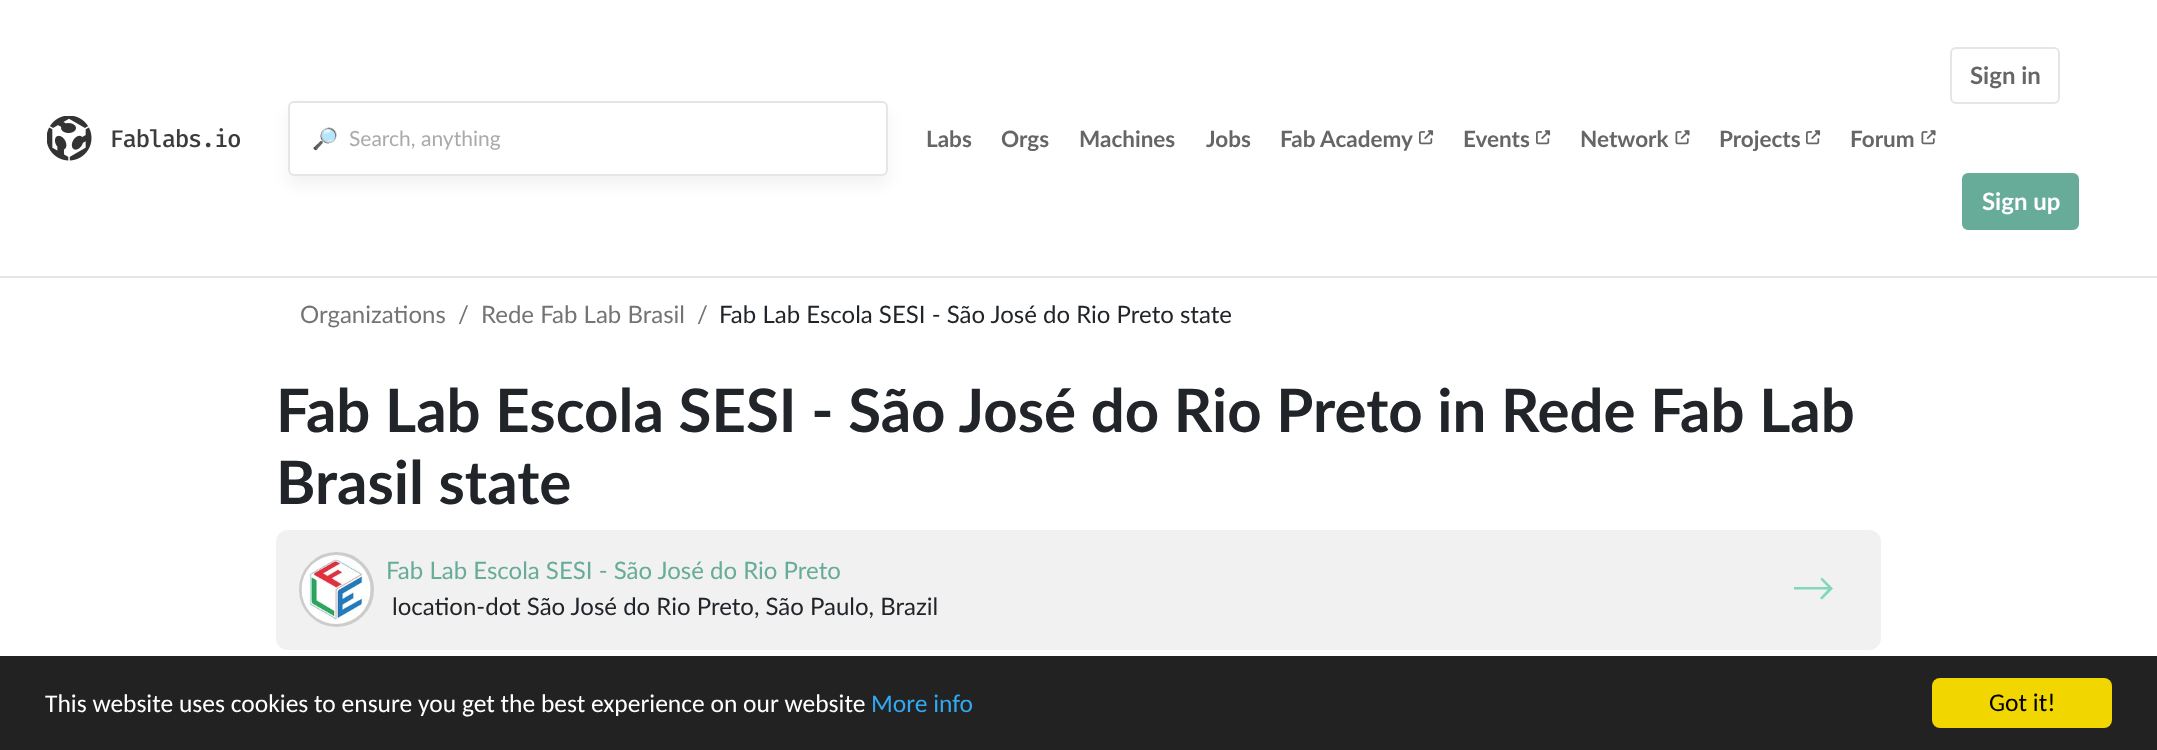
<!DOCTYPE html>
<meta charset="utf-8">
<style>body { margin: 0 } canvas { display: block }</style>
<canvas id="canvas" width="2157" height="750"></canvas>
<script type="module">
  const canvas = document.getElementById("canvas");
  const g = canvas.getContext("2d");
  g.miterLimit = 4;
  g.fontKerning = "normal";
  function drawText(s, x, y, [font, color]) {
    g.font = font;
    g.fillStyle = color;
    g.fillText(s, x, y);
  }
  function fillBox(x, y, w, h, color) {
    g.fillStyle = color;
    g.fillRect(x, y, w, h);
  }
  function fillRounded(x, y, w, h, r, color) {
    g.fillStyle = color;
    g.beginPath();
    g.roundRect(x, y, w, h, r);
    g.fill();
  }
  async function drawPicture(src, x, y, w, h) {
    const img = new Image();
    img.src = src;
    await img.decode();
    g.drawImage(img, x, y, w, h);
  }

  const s1 = ["21px Noto Color Emoji", "#AAAAAA"];
  const s2 = ["21px Lato", "#AAAAAA"];
  const s3 = ["bold 22.5px Lato", "#666666"];
  const s4 = ["bold 24px Lato", "#666666"];
  const s5 = ["bold 24px Lato", "#FFFFFF"];
  const s6 = ["24px Lato", "#747474"];
  const s7 = ["24px Lato", "#6C757D"];
  const s8 = ["24px Lato", "#212529"];
  const s9 = ["bold 60px Lato", "#212529"];
  const s10 = ["24px Lato", "#67AC98"];
  const s11 = ["25.5px Carlito", "#FFFFFF"];
  const s12 = ["25.5px Carlito", "#31A8F0"];
  const s13 = ["25.5px Carlito", "#000000"];

  fillBox(0, 0, 2157, 750, "#FFFFFF");
  fillBox(0, 276, 2157, 2, "#E5E5E5");
  await drawPicture("pic1.png", 47, 116, 193, 45);
  g.save();
  g.beginPath();
  g.moveTo(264, 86);
  g.lineTo(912, 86);
  g.lineTo(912, 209);
  g.lineTo(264, 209);
  g.closePath();
  g.moveTo(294, 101);
  g.lineTo(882, 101);
  g.bezierCurveTo(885.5, 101, 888, 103.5, 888, 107);
  g.lineTo(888, 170);
  g.bezierCurveTo(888, 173.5, 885.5, 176, 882, 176);
  g.lineTo(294, 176);
  g.bezierCurveTo(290.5, 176, 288, 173.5, 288, 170);
  g.lineTo(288, 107);
  g.bezierCurveTo(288, 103.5, 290.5, 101, 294, 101);
  g.closePath();
  g.clip("evenodd");
  g.fillStyle = "rgba(0, 0, 0, 0.05)";
  g.filter = "blur(7.5px)";
  g.beginPath();
  g.roundRect(288, 110, 600, 75, 6);
  g.fill();
  g.filter = "none";
  g.restore();
  g.beginPath();
  g.roundRect(289, 102, 598, 73, 5);
  g.strokeStyle = "#E5E5E5";
  g.lineWidth = 2;
  g.stroke();
  drawText("🔎", 312, 146, s1);
  drawText("Search, anything", 349, 146, s2);
  drawText("Labs", 926, 147, s3);
  drawText("Orgs", 1001, 147, s3);
  drawText("Machines", 1079, 147, s3);
  drawText("Jobs", 1206, 147, s3);
  drawText("Fab Academy", 1280, 147, s3);
  await drawPicture("pic2.png", 1419, 130, 15, 15);
  drawText("Events", 1463, 147, s3);
  await drawPicture("pic2.png", 1536, 130, 15, 15);
  drawText("Network", 1580, 147, s3);
  await drawPicture("pic3.png", 1675, 130, 15, 15);
  drawText("Projects", 1719, 147, s3);
  await drawPicture("pic2.png", 1806, 130, 15, 15);
  drawText("Forum", 1850, 147, s3);
  await drawPicture("pic3.png", 1921, 130, 15, 15);
  g.beginPath();
  g.roundRect(1951, 48, 108, 55, 5);
  g.stroke();
  drawText("Sign in", 1970, 84, s4);
  g.fillStyle = "#67AC98";
  g.beginPath();
  g.roundRect(1963, 174, 115, 55, 5);
  g.fill();
  g.strokeStyle = "#67AC98";
  g.stroke();
  drawText("Sign up", 1982, 210, s5);
  drawText("Organizations", 300, 323, s6);
  drawText("/", 458, 323, s7);
  drawText("Rede Fab Lab Brasil", 481, 323, s6);
  drawText("/", 697, 323, s7);
  drawText("Fab Lab Escola SESI - São José do Rio Preto state", 719, 323, s8);
  drawText("Fab Lab Escola SESI - São José do Rio Preto in Rede Fab Lab", 276, 432, s9);
  drawText("Brasil state", 276, 504, s9);
  fillRounded(276, 530, 1605, 120, 12, "#F1F1F1");
  g.fillStyle = "#D8D8D8";
  g.beginPath();
  g.arc(336.5, 589.5, 36, 0, Math.PI * 2);
  g.fill();
  g.strokeStyle = "#CCCCCC";
  g.lineWidth = 3;
  g.stroke();
  await drawPicture("pic4.png", 301, 555, 70, 69);
  drawText("Fab Lab Escola SESI - São José do Rio Preto", 386, 579, s10);
  drawText("location-dot São José do Rio Preto, São Paulo, Brazil", 392, 615, s8);
  g.fillStyle = "#81D7BE";
  g.beginPath();
  g.moveTo(1828, 587);
  g.lineTo(1820.5, 579.5);
  g.lineTo(1822, 577.5);
  g.lineTo(1833, 588.5);
  g.lineTo(1822, 599.5);
  g.lineTo(1820, 598);
  g.lineTo(1828, 589.5);
  g.lineTo(1794, 589.5);
  g.lineTo(1794, 587);
  g.closePath();
  g.fill("evenodd");
  fillBox(0, 656, 2157, 94, "#222222");
  drawText("This website uses cookies to ensure you get the best experience on our website", 45, 712, s11);
  drawText("More info", 871, 712, s12);
  fillRounded(1932, 678, 180, 50, 8, "#F1D600");
  drawText("Got it!", 1989, 711, s13);
</script>
